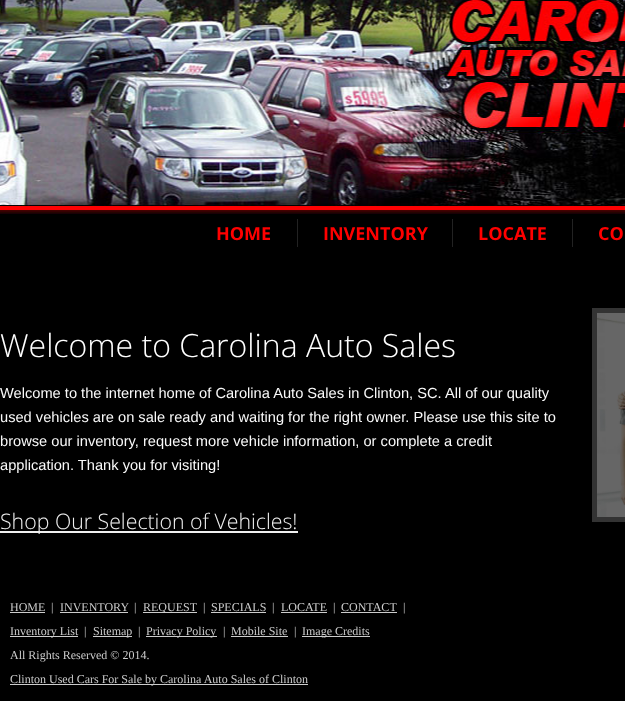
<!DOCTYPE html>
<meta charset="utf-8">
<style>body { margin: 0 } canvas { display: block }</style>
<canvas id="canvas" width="625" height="701"></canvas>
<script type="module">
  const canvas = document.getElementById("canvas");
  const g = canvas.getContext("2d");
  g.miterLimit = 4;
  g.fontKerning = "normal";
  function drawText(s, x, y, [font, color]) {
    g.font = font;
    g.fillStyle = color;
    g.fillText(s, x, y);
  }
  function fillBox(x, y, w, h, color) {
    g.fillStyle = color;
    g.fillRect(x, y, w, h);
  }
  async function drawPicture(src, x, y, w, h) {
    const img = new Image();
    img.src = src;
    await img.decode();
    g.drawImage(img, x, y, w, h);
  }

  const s1 = ["bold 18px Open Sans", "#FF0000"];
  const s2 = ["300 32px Open Sans", "#FFFFFF"];
  const s3 = ["14.65px Liberation Sans", "#F9F9F9"];
  const s4 = ["300 21.3px Open Sans", "#F0F0F0"];
  const s5 = ["12px Liberation Serif", "#CCCCCC"];

  fillBox(0, 0, 625, 701, "#000000");
  await drawPicture("pic1.png", 0, 0, 625, 214);
  drawText("HOME", 216, 240, s1);
  fillBox(297, 219, 1, 28, "#222222");
  drawText("INVENTORY", 323, 240, s1);
  fillBox(452, 219, 1, 28, "#222222");
  drawText("LOCATE", 478, 240, s1);
  fillBox(572, 219, 1, 28, "#222222");
  drawText("CO", 598, 240, s1);
  drawText("Welcome to Carolina Auto Sales", 0, 357, s2);
  drawText("Welcome to the internet home of Carolina Auto Sales in Clinton, SC. All of our quality", 0, 398, s3);
  drawText("used vehicles are on sale ready and waiting for the right owner. Please use this site to", 0, 422, s3);
  drawText("browse our inventory, request more vehicle information, or complete a credit", 0, 446, s3);
  drawText("application. Thank you for visiting!", 0, 470, s3);
  fillBox(0, 531, 298, 2, "#F0F0F0");
  drawText("Shop Our Selection of Vehicles!", 0, 529, s4);
  await drawPicture("pic2.png", 597, 313, 28, 204);
  g.strokeStyle = "#333333";
  g.lineWidth = 5;
  g.strokeRect(594.5, 310.5, 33, 209);
  drawText("HOME", 10, 611, s5);
  fillBox(10, 612, 35, 1, "#CCCCCC");
  drawText("|", 51, 611, s5);
  drawText("INVENTORY", 60, 611, s5);
  fillBox(60, 612, 68, 1, "#CCCCCC");
  drawText("|", 134, 611, s5);
  fillBox(143, 612, 54, 1, "#CCCCCC");
  drawText("REQUEST", 143, 611, s5);
  drawText("|", 203, 611, s5);
  drawText("SPECIALS", 211, 611, s5);
  fillBox(211, 612, 55, 1, "#CCCCCC");
  drawText("|", 272, 611, s5);
  drawText("LOCATE", 281, 611, s5);
  fillBox(281, 612, 46, 1, "#CCCCCC");
  drawText("|", 333, 611, s5);
  drawText("CONTACT", 341, 611, s5);
  fillBox(341, 612, 56, 1, "#CCCCCC");
  drawText("|", 403, 611, s5);
  fillBox(10, 636, 68, 1, "#CCCCCC");
  drawText("Inventory List", 10, 635, s5);
  drawText("|", 84, 635, s5);
  fillBox(93, 636, 39, 1, "#CCCCCC");
  drawText("Sitemap", 93, 635, s5);
  drawText("|", 138, 635, s5);
  fillBox(146, 636, 71, 1, "#CCCCCC");
  drawText("Privacy Policy", 146, 635, s5);
  drawText("|", 223, 635, s5);
  drawText("Mobile Site", 231, 635, s5);
  fillBox(231, 636, 57, 1, "#CCCCCC");
  drawText("|", 294, 635, s5);
  fillBox(302, 636, 68, 1, "#CCCCCC");
  drawText("Image Credits", 302, 635, s5);
  drawText("All Rights Reserved © 2014.", 10, 659, s5);
  fillBox(10, 684, 298, 1, "#CCCCCC");
  drawText("Clinton Used Cars For Sale by Carolina Auto Sales of Clinton", 10, 683, s5);
</script>
